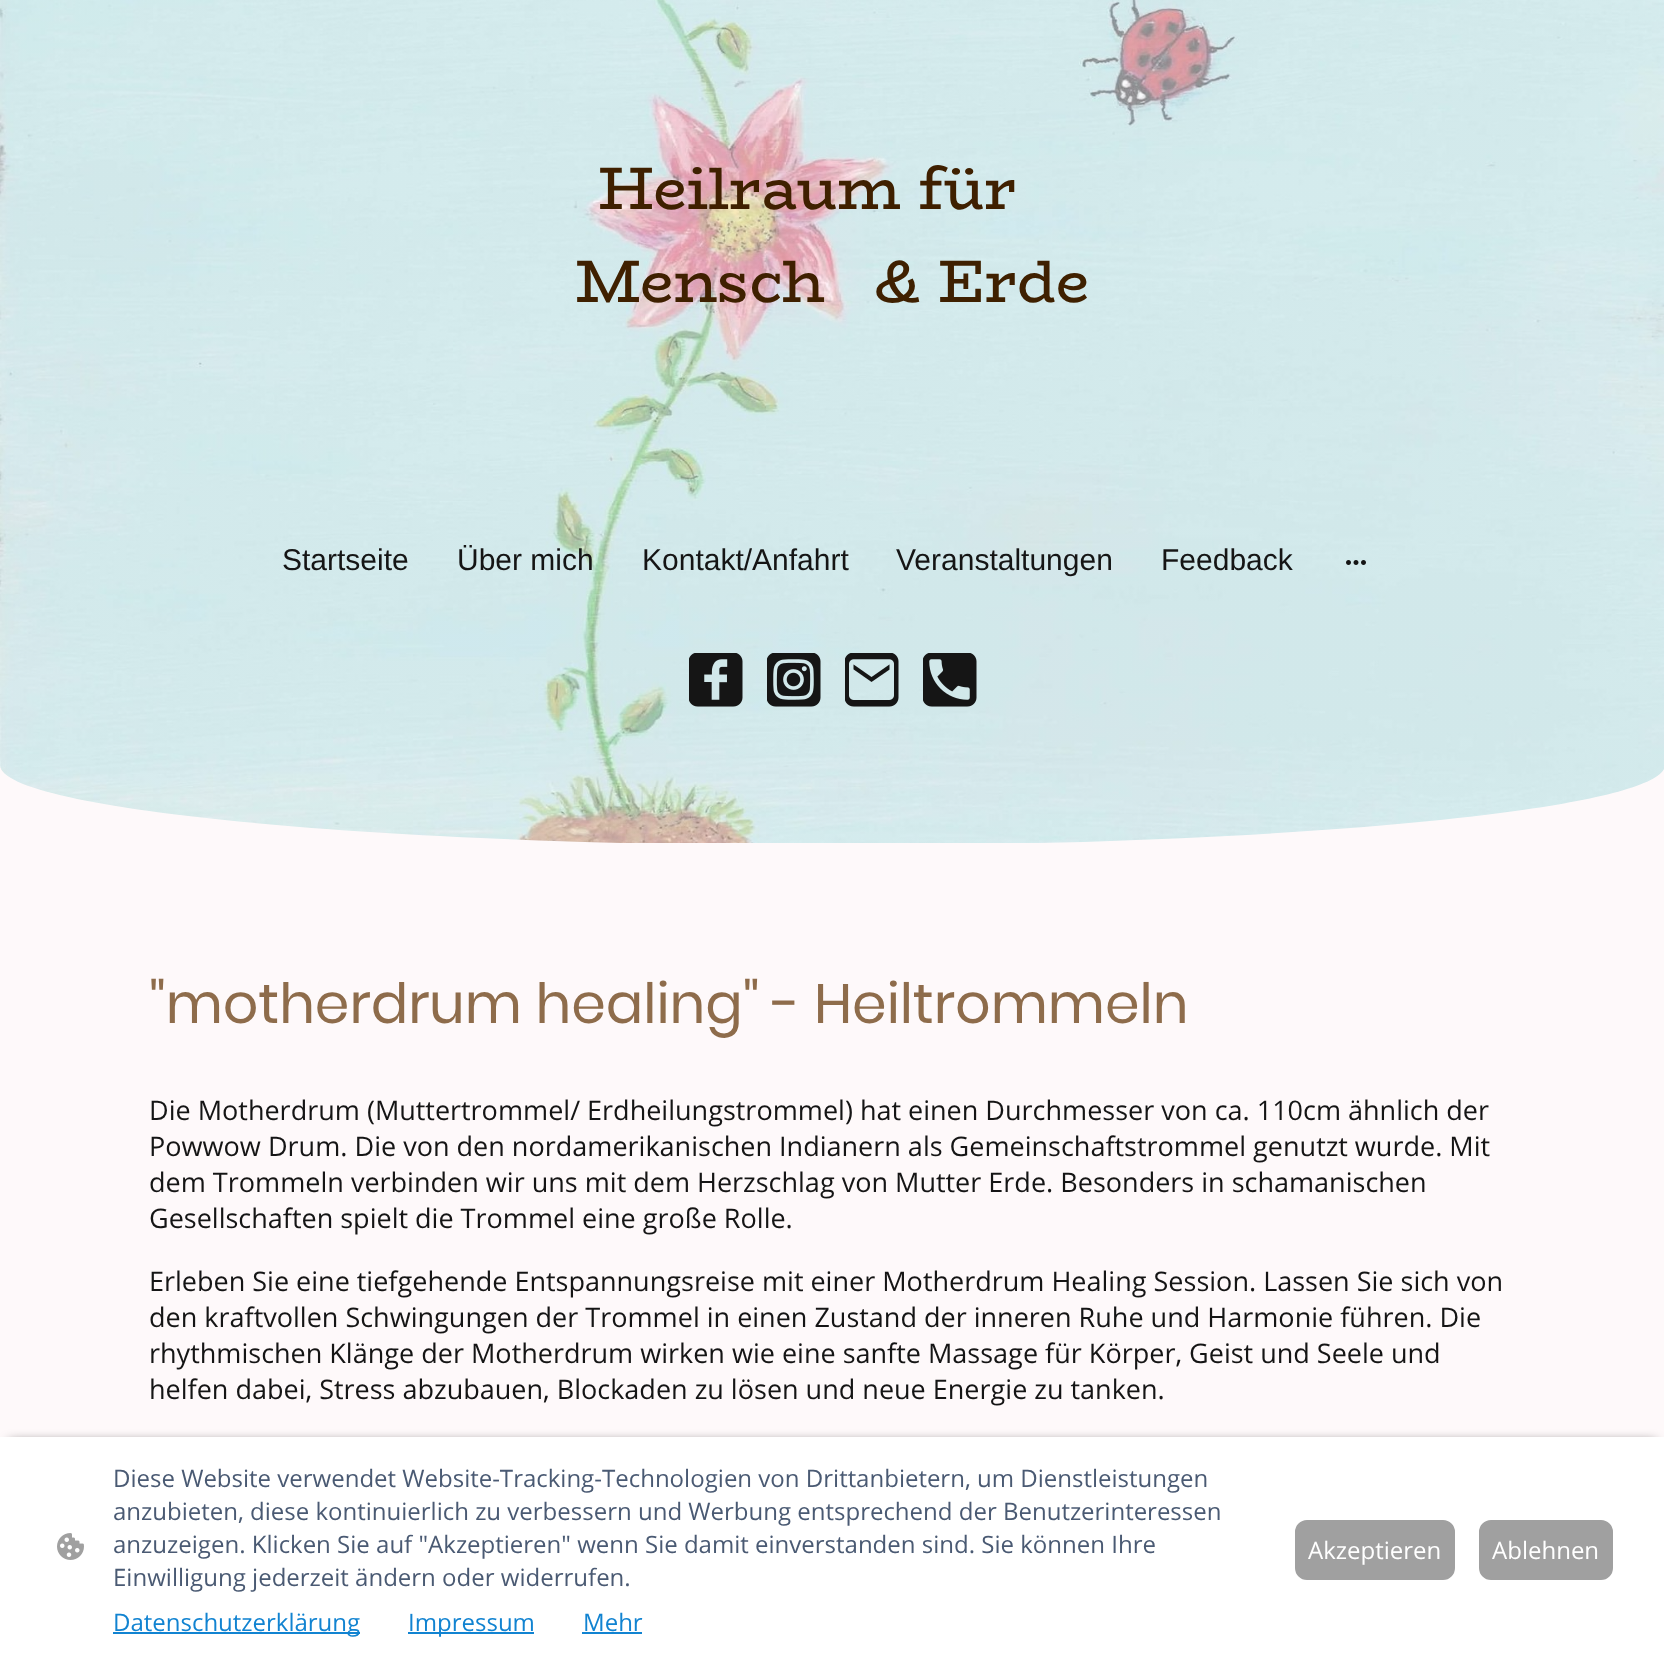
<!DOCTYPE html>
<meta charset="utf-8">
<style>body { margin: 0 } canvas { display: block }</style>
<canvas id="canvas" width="1664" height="1662"></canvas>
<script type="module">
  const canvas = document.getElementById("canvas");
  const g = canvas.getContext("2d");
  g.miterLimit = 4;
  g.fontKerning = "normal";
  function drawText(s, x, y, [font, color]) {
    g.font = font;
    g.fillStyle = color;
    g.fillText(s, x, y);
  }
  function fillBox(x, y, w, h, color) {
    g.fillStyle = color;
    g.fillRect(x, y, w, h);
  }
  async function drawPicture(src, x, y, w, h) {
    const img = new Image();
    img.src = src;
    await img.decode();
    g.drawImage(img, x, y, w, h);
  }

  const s1 = ["60px BioRhyme", "#3F2000"];
  const s2 = ["30px Liberation Sans", "#151515"];
  const s3 = ["55.5px Poppins", "#8E6C4B"];
  const s4 = ["27px Open Sans", "#151515"];
  const s5 = ["24px Open Sans", "#4A5A73"];
  const s6 = ["24px Open Sans", "#1183D1"];
  const s7 = ["24px Open Sans", "#FFFFFF"];

  fillBox(0, 0, 1664, 1662, "#FEF9FA");
  await drawPicture("pic1.png", 0, 0, 1664, 843);
  drawText("Heilraum für", 598, 209, s1);
  drawText("Mensch", 575, 302, s1);
  drawText("& Erde", 874, 302, s1);
  drawText("Startseite", 282, 570, s2);
  drawText("Über mich", 457, 570, s2);
  drawText("Kontakt/Anfahrt", 642, 570, s2);
  drawText("Veranstaltungen", 896, 570, s2);
  drawText("Feedback", 1161, 570, s2);
  await drawPicture("pic2.png", 1346, 560, 20, 5);
  await drawPicture("pic3.png", 689, 653, 54, 54);
  await drawPicture("pic4.png", 767, 653, 54, 54);
  await drawPicture("pic5.png", 845, 653, 54, 54);
  await drawPicture("pic6.png", 923, 653, 54, 54);
  await drawPicture("pic7.png", 0, 766, 1664, 79);
  drawText("\"motherdrum healing\" - Heiltrommeln", 149, 1023, s3);
  drawText("Die Motherdrum (Muttertrommel/ Erdheilungstrommel) hat einen Durchmesser von ca. 110cm ähnlich der", 149, 1120, s4);
  drawText("Powwow Drum. Die von den nordamerikanischen Indianern als Gemeinschaftstrommel genutzt wurde. Mit", 149, 1156, s4);
  drawText("dem Trommeln verbinden wir uns mit dem Herzschlag von Mutter Erde. Besonders in schamanischen", 149, 1192, s4);
  drawText("Gesellschaften spielt die Trommel eine große Rolle.", 149, 1228, s4);
  drawText("Erleben Sie eine tiefgehende Entspannungsreise mit einer Motherdrum Healing Session. Lassen Sie sich von", 149, 1291, s4);
  drawText("den kraftvollen Schwingungen der Trommel in einen Zustand der inneren Ruhe und Harmonie führen. Die", 149, 1327, s4);
  drawText("rhythmischen Klänge der Motherdrum wirken wie eine sanfte Massage für Körper, Geist und Seele und", 149, 1363, s4);
  drawText("helfen dabei, Stress abzubauen, Blockaden zu lösen und neue Energie zu tanken.", 149, 1399, s4);
  g.fillStyle = "rgba(0, 0, 0, 0.63)";
  g.filter = "blur(6px)";
  g.beginPath();
  g.rect(9, 1442, 1647, 207);
  g.fill();
  g.filter = "none";
  fillBox(0, 1437, 1664, 225, "#FFFFFF");
  await drawPicture("pic8.png", 57, 1533, 27, 27);
  drawText("Diese Website verwendet Website-Tracking-Technologien von Drittanbietern, um Dienstleistungen", 113, 1487, s5);
  drawText("anzubieten, diese kontinuierlich zu verbessern und Werbung entsprechend der Benutzerinteressen", 113, 1520, s5);
  drawText("anzuzeigen. Klicken Sie auf \"Akzeptieren\" wenn Sie damit einverstanden sind. Sie können Ihre", 113, 1553, s5);
  drawText("Einwilligung jederzeit ändern oder widerrufen.", 113, 1586, s5);
  fillBox(113, 1632, 247, 2, "#1183D1");
  drawText("Datenschutzerklärung", 113, 1631, s6);
  fillBox(408, 1632, 126, 2, "#1183D1");
  drawText("Impressum", 408, 1631, s6);
  drawText("Mehr", 583, 1631, s6);
  fillBox(582, 1632, 60, 2, "#1183D1");
  g.fillStyle = "#A0A0A0";
  g.beginPath();
  g.roundRect(1296, 1521, 158, 58, 11);
  g.fill();
  g.strokeStyle = "#A0A0A0";
  g.lineWidth = 2;
  g.stroke();
  drawText("Akzeptieren", 1308, 1559, s7);
  g.fillStyle = "#A0A0A0";
  g.beginPath();
  g.roundRect(1480, 1521, 132, 58, 11);
  g.fill();
  g.stroke();
  drawText("Ablehnen", 1492, 1559, s7);
</script>
